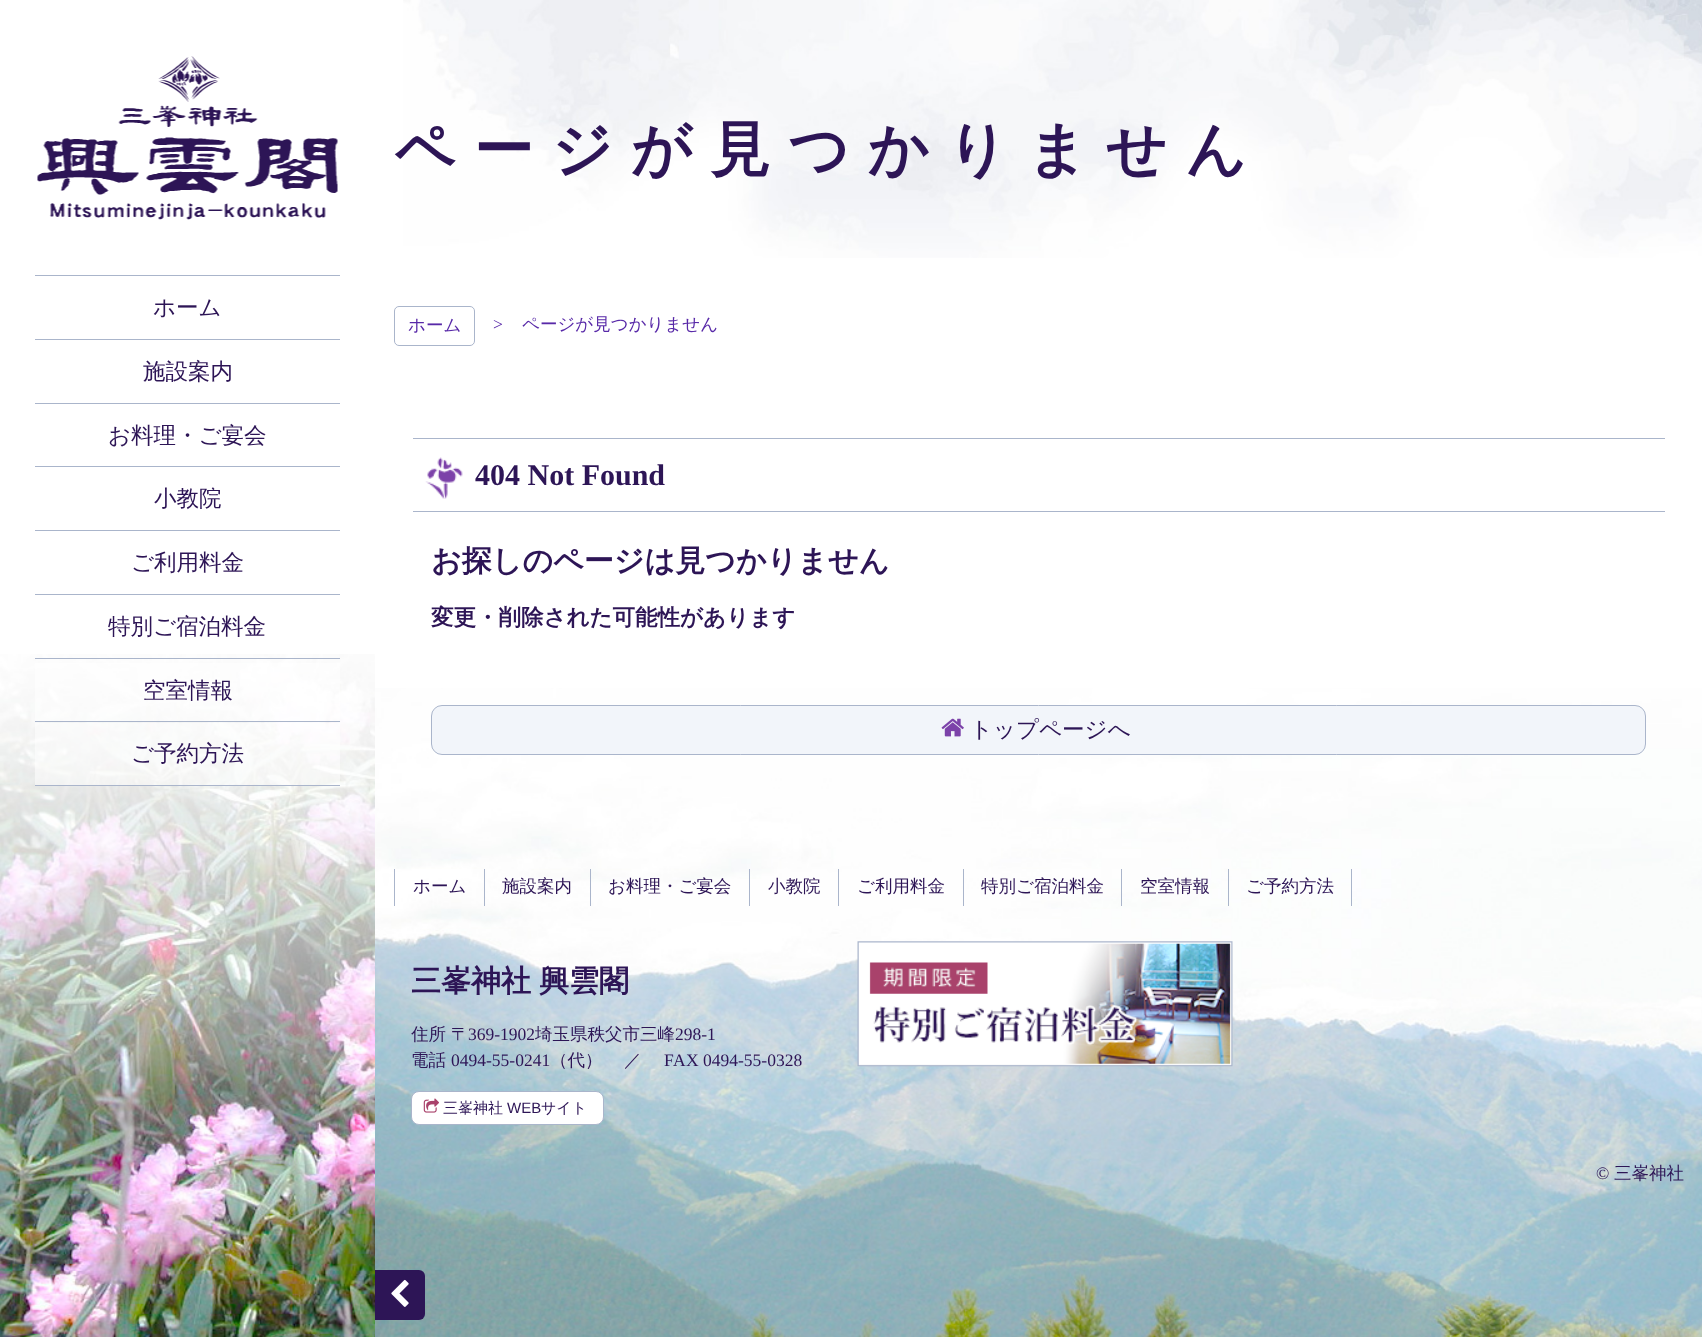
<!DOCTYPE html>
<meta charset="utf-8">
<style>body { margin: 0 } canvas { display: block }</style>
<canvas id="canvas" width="1702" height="1337"></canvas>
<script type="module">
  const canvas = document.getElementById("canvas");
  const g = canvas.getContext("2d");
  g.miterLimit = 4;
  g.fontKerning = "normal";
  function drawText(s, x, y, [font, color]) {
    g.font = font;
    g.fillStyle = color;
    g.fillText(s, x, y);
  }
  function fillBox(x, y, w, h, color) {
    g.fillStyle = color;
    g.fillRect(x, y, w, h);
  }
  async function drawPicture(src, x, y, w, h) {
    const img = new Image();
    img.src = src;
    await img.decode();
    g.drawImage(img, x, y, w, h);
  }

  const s1 = ["bold 60px WenQuanYi Zen Hei", "#2D1556"];
  const s2 = ["500 22.5px WenQuanYi Zen Hei", "#2D1556"];
  const s3 = ["500 17.5px WenQuanYi Zen Hei", "#5829A8"];
  const s4 = ["17.5px Liberation Serif", "#5829A8"];
  const s5 = ["bold 30px Liberation Serif", "#2D1556"];
  const s6 = ["bold 30px WenQuanYi Zen Hei", "#2D1556"];
  const s7 = ["bold 22.5px WenQuanYi Zen Hei", "#2D1556"];
  const s8 = ["500 17.5px WenQuanYi Zen Hei", "#2D1556"];
  const s9 = ["17.5px Liberation Serif", "#2D1556"];
  const s10 = ["500 15px WenQuanYi Zen Hei", "#2D1556"];
  const s11 = ["15px Liberation Sans", "#2D1556"];

  fillBox(0, 0, 1702, 1337, "#FFFFFF");
  await drawPicture("pic1.png", 375, 688, 1327, 649);
  await drawPicture("pic2.png", 403, 0, 1299, 258);
  g.letterSpacing = "18px";
  drawText("ページが見つかりません", 394, 170, s1);
  await drawPicture("pic3.png", 0, 654, 375, 683);
  await drawPicture("pic4.png", 37, 56, 301, 164);
  fillBox(35, 275, 305, 1, "#AAB5CB");
  g.letterSpacing = "0px";
  drawText("ホーム", 153, 315, s2);
  fillBox(35, 339, 305, 1, "#AAB5CB");
  drawText("施設案内", 143, 379, s2);
  fillBox(35, 403, 305, 1, "#AAB5CB");
  drawText("お料理・ご宴会", 108, 443, s2);
  fillBox(35, 466, 305, 1, "#AAB5CB");
  drawText("小教院", 154, 506, s2);
  fillBox(35, 530, 305, 1, "#AAB5CB");
  drawText("ご利用料金", 131, 570, s2);
  fillBox(35, 594, 305, 1, "#AAB5CB");
  drawText("特別ご宿泊料金", 108, 634, s2);
  fillBox(35, 658, 305, 1, "#AAB5CB");
  fillBox(35, 663, 305, 58, "rgba(255, 255, 255, 0.5)");
  drawText("空室情報", 143, 698, s2);
  fillBox(35, 721, 305, 1, "#AAB5CB");
  fillBox(35, 785, 305, 1, "#AAB5CB");
  fillBox(35, 723, 305, 62, "rgba(255, 255, 255, 0.5)");
  drawText("ご予約方法", 131, 761, s2);
  g.beginPath();
  g.roundRect(375, 1270, 50, 50, [0, 6, 6, 0]);
  g.fill();
  await drawPicture("pic5.png", 391, 1279, 18, 28);
  g.beginPath();
  g.roundRect(394.5, 306.5, 80, 39, 4.5);
  g.strokeStyle = "#AAB5CB";
  g.stroke();
  drawText("ホーム", 408, 331, s3);
  drawText(">", 493, 330, s4);
  drawText("ページが見つかりません", 522, 330, s3);
  fillBox(413, 438, 1252, 1, "#AAB5CB");
  fillBox(413, 511, 1252, 1, "#AAB5CB");
  await drawPicture("pic6.png", 425, 457, 38, 42);
  drawText("404 Not Found", 475, 485, s5);
  drawText("お探しのページは見つかりません", 431, 571, s6);
  drawText("変更・削除された可能性があります", 431, 625, s7);
  g.fillStyle = "#F2F5FA";
  g.beginPath();
  g.roundRect(431.5, 705.5, 1214, 49, 10.5);
  g.fill();
  g.stroke();
  await drawPicture("pic7.png", 941, 718, 23, 19);
  drawText("トップページへ", 970, 737, s2);
  fillBox(394, 869, 1, 37, "#AAB5CB");
  drawText("ホーム", 413, 892, s8);
  fillBox(484, 869, 1, 37, "#AAB5CB");
  drawText("施設案内", 502, 892, s8);
  fillBox(590, 869, 1, 37, "#AAB5CB");
  drawText("お料理・ご宴会", 608, 892, s8);
  fillBox(749, 869, 1, 37, "#AAB5CB");
  drawText("小教院", 768, 892, s8);
  fillBox(838, 869, 1, 37, "#AAB5CB");
  drawText("ご利用料金", 857, 892, s8);
  fillBox(963, 869, 1, 37, "#AAB5CB");
  drawText("特別ご宿泊料金", 981, 892, s8);
  fillBox(1121, 869, 1, 37, "#AAB5CB");
  drawText("空室情報", 1140, 892, s8);
  fillBox(1351, 869, 1, 37, "#AAB5CB");
  fillBox(1228, 869, 1, 37, "#AAB5CB");
  drawText("ご予約方法", 1246, 892, s8);
  g.wordSpacing = "-1px";
  drawText("三峯神社 興雲閣", 411, 991, s6);
  g.wordSpacing = "0px";
  drawText("住所", 411, 1040, s8);
  drawText("〒", 451, 1040, s8);
  drawText("369-1902", 468, 1040, s9);
  drawText("埼玉県秩父市三峰", 535, 1040, s8);
  drawText("298-1", 675, 1040, s9);
  drawText("電話", 411, 1066, s8);
  drawText("0494-55-0241", 451, 1066, s9);
  drawText("（代）", 550, 1066, s8);
  drawText("／", 624, 1066, s8);
  g.letterSpacing = "0.5px";
  drawText("FAX", 664, 1066, s9);
  g.letterSpacing = "0px";
  drawText("0494-55-0328", 703, 1066, s9);
  g.fillStyle = "#FFFFFF";
  g.beginPath();
  g.roundRect(411.5, 1091.5, 192, 33, 7.5);
  g.fill();
  g.stroke();
  await drawPicture("pic8.png", 423, 1098, 16, 15);
  drawText("三峯神社", 443, 1113, s10);
  drawText("WEB", 507, 1113, s11);
  drawText("サイト", 541, 1113, s10);
  await drawPicture("pic9.png", 857, 941, 376, 126);
  drawText("©", 1596, 1179, s9);
  drawText("三峯神社", 1614, 1179, s8);
</script>
